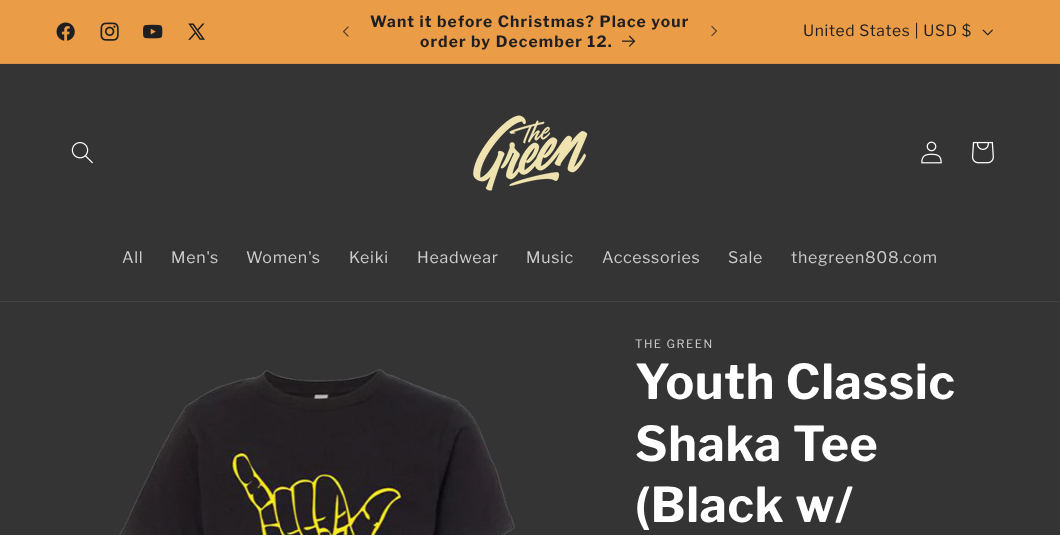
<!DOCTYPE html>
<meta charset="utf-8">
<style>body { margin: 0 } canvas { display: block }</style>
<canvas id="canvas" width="1060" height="535"></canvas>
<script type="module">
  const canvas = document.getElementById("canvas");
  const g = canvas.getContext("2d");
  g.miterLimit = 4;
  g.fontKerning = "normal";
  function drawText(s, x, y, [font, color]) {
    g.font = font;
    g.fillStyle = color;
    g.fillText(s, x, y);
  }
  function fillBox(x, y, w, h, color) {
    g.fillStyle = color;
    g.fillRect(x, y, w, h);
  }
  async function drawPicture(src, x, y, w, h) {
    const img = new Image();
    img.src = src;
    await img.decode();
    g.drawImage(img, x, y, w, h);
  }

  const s1 = ["bold 15.6px Libre Franklin", "#1F1F21"];
  const s2 = ["15.6px Libre Franklin", "#1F1F21"];
  const s3 = ["16px Libre Franklin", "#CCCCCC"];
  const s4 = ["11.5px Libre Franklin", "#CCCCCC"];
  const s5 = ["bold 48px Libre Franklin", "#FFFFFF"];

  fillBox(0, 0, 1060, 535, "#343434");
  fillBox(0, 0, 1060, 63, "#EB9C47");
  fillBox(0, 63, 1060, 1, "#DB9244");
  await drawPicture("pic1.png", 56, 22, 19, 19);
  await drawPicture("pic2.png", 100, 22, 19, 19);
  await drawPicture("pic3.png", 143, 24, 20, 15);
  await drawPicture("pic4.png", 188, 23, 17, 17);
  await drawPicture("pic5.png", 343, 26, 6, 11);
  g.letterSpacing = "1.15px";
  drawText("Want it before Christmas? Place your", 370, 27, s1);
  drawText("order by December 12.", 420, 47, s1);
  await drawPicture("pic6.png", 622, 35, 13, 12);
  await drawPicture("pic7.png", 711, 26, 6, 11);
  g.letterSpacing = "0.7px";
  drawText("United States | USD $", 803, 36, s2);
  await drawPicture("pic8.png", 982, 29, 11, 7);
  fillBox(0, 301, 1060, 1, "#444444");
  await drawPicture("pic9.png", 71, 142, 22, 22);
  await drawPicture("pic10.png", 473, 115, 115, 76);
  await drawPicture("pic11.png", 921, 141, 21, 23);
  await drawPicture("pic12.png", 971, 141, 23, 23);
  drawText("All", 122, 263, s3);
  drawText("Men's", 171, 263, s3);
  drawText("Women's", 246, 263, s3);
  drawText("Keiki", 349, 263, s3);
  drawText("Headwear", 417, 263, s3);
  drawText("Music", 526, 263, s3);
  drawText("Accessories", 602, 263, s3);
  drawText("Sale", 728, 263, s3);
  drawText("thegreen808.com", 791, 263, s3);
  await drawPicture("pic13.png", 119, 369, 396, 166);
  g.letterSpacing = "1.5px";
  drawText("THE GREEN", 635, 348, s4);
  g.letterSpacing = "0.75px";
  drawText("Youth Classic", 635, 399, s5);
  drawText("Shaka Tee", 635, 461, s5);
  drawText("(Black w/", 635, 522, s5);
</script>
